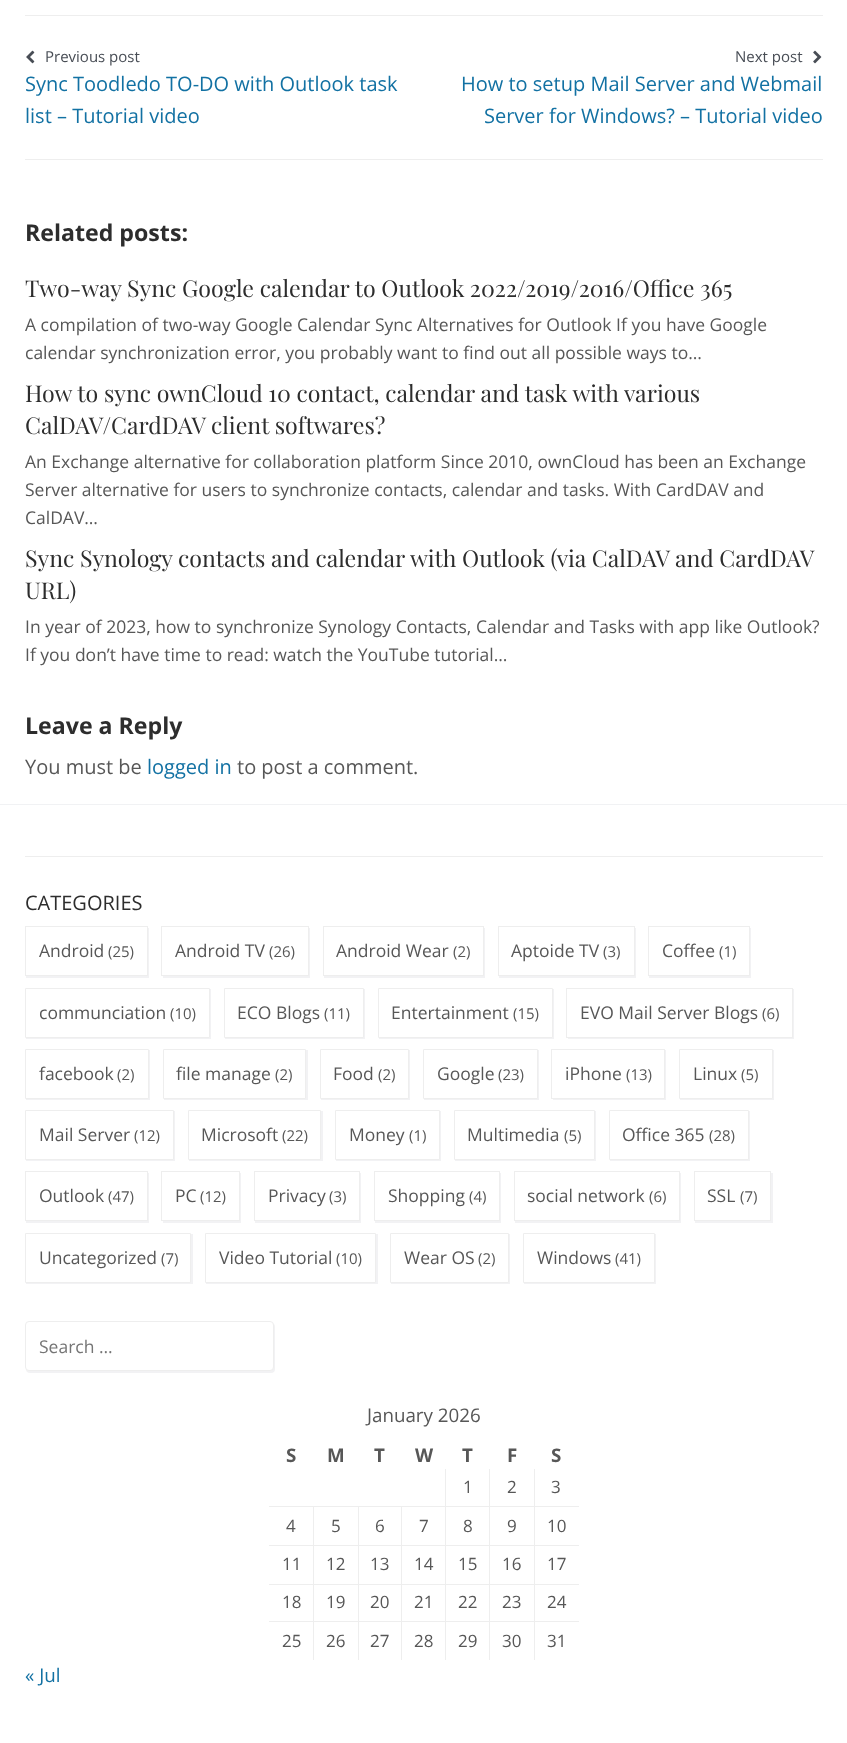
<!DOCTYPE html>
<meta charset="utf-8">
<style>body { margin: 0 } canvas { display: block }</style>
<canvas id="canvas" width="847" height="1743"></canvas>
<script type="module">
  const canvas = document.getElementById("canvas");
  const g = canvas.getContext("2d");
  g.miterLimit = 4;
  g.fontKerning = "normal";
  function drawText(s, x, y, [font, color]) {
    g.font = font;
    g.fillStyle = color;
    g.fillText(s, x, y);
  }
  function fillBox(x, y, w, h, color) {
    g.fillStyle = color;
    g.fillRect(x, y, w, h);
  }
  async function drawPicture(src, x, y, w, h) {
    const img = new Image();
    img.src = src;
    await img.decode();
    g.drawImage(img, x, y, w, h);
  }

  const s1 = ["15px Open Sans", "#484D55"];
  const s2 = ["20px Open Sans", "#1271A3"];
  const s3 = ["bold 23.15px Open Sans", "#2D2D2D"];
  const s4 = ["23.15px Playfair Display", "#2D2D2D"];
  const s5 = ["17.5px Open Sans", "#575757"];
  const s6 = ["20px Open Sans", "#575757"];
  const s7 = ["20px Open Sans", "#2D2D2D"];
  const s8 = ["15px Open Sans", "#575757"];
  const s9 = ["17.5px Open Sans", "#757575"];
  const s10 = ["18.75px Open Sans", "#575757"];
  const s11 = ["bold 18.75px Open Sans", "#575757"];
  const s12 = ["17px Open Sans", "#575757"];
  const s13 = ["18.75px Open Sans", "#1271A3"];

  fillBox(0, 0, 847, 1743, "#FFFFFF");
  fillBox(25, 15, 798, 1, "#EEEEEE");
  fillBox(25, 159, 798, 1, "#EEEEEE");
  await drawPicture("pic1.png", 26, 50, 9, 14);
  drawText("Previous post", 45, 62, s1);
  drawText("Sync Toodledo TO-DO with Outlook task", 25, 91, s2);
  drawText("list – Tutorial video", 25, 123, s2);
  drawText("Next post", 735, 62, s1);
  await drawPicture("pic2.png", 813, 50, 9, 14);
  drawText("How to setup Mail Server and Webmail", 461, 91, s2);
  drawText("Server for Windows? – Tutorial video", 484, 123, s2);
  drawText("Related posts:", 25, 241, s3);
  drawText("Two-way Sync Google calendar to Outlook 2022/2019/2016/Office 365", 25, 297, s4);
  drawText("A compilation of two-way Google Calendar Sync Alternatives for Outlook If you have Google", 25, 331, s5);
  drawText("calendar synchronization error, you probably want to find out all possible ways to…", 25, 359, s5);
  drawText("How to sync ownCloud 10 contact, calendar and task with various", 25, 402, s4);
  drawText("CalDAV/CardDAV client softwares?", 25, 434, s4);
  drawText("An Exchange alternative for collaboration platform Since 2010, ownCloud has been an Exchange", 25, 468, s5);
  drawText("Server alternative for users to synchronize contacts, calendar and tasks. With CardDAV and", 25, 496, s5);
  drawText("CalDAV…", 25, 524, s5);
  g.wordSpacing = "-0.1px";
  drawText("Sync Synology contacts and calendar with Outlook (via CalDAV and CardDAV", 25, 567, s4);
  g.wordSpacing = "0px";
  drawText("URL)", 25, 599, s4);
  drawText("In year of 2023, how to synchronize Synology Contacts, Calendar and Tasks with app like Outlook?", 25, 633, s5);
  drawText("If you don’t have time to read: watch the YouTube tutorial…", 25, 661, s5);
  drawText("Leave a Reply", 25, 734, s3);
  drawText("You must be", 25, 774, s6);
  drawText("logged in", 147, 774, s2);
  drawText("to post a comment.", 237, 774, s6);
  fillBox(0, 804, 847, 1, "#F1F2F4");
  fillBox(25, 856, 798, 1, "#EEEEEE");
  drawText("CATEGORIES", 25, 910, s7);
  g.fillStyle = "rgba(0, 0, 40, 0.05)";
  g.filter = "blur(0.5px)";
  g.beginPath();
  g.rect(26, 928, 123, 50);
  g.fill();
  g.filter = "none";
  fillBox(26, 928, 121, 47, "#FFFFFF");
  g.strokeStyle = "#EEEEEE";
  g.strokeRect(25.5, 926.5, 122, 49);
  drawText("Android", 39, 957, s5);
  drawText("(25)", 108, 957, s8);
  g.fillStyle = "rgba(0, 0, 40, 0.05)";
  g.filter = "blur(0.5px)";
  g.beginPath();
  g.rect(163, 928, 147, 50);
  g.fill();
  g.filter = "none";
  fillBox(163, 928, 145, 47, "#FFFFFF");
  g.strokeRect(161.5, 926.5, 147, 49);
  drawText("Android TV", 175, 957, s5);
  drawText("(26)", 269, 957, s8);
  g.fillStyle = "rgba(0, 0, 40, 0.05)";
  g.filter = "blur(0.5px)";
  g.beginPath();
  g.rect(324, 928, 161, 50);
  g.fill();
  g.filter = "none";
  fillBox(324, 928, 159, 47, "#FFFFFF");
  g.strokeRect(323.5, 926.5, 160, 49);
  drawText("Android Wear", 336, 957, s5);
  drawText("(2)", 453, 957, s8);
  g.fillStyle = "rgba(0, 0, 40, 0.05)";
  g.filter = "blur(0.5px)";
  g.beginPath();
  g.rect(499, 928, 137, 50);
  g.fill();
  g.filter = "none";
  fillBox(499, 928, 135, 47, "#FFFFFF");
  g.strokeRect(498.5, 926.5, 136, 49);
  drawText("Aptoide TV", 511, 957, s5);
  drawText("(3)", 603, 957, s8);
  g.fillStyle = "rgba(0, 0, 40, 0.05)";
  g.filter = "blur(0.5px)";
  g.beginPath();
  g.rect(649, 928, 102, 50);
  g.fill();
  g.filter = "none";
  fillBox(649, 928, 100, 47, "#FFFFFF");
  g.strokeRect(648.5, 926.5, 101, 49);
  drawText("Coffee", 662, 957, s5);
  drawText("(1)", 719, 957, s8);
  g.fillStyle = "rgba(0, 0, 40, 0.05)";
  g.filter = "blur(0.5px)";
  g.beginPath();
  g.rect(26, 989, 185, 50);
  g.fill();
  g.filter = "none";
  g.fillStyle = "#FFFFFF";
  g.beginPath();
  g.rect(25.5, 988.5, 184, 49);
  g.fill();
  g.stroke();
  drawText("communciation", 39, 1019, s5);
  drawText("(10)", 170, 1019, s8);
  g.fillStyle = "rgba(0, 0, 40, 0.05)";
  g.filter = "blur(0.5px)";
  g.beginPath();
  g.rect(225, 989, 140, 50);
  g.fill();
  g.filter = "none";
  g.fillStyle = "#FFFFFF";
  g.beginPath();
  g.rect(224.5, 988.5, 139, 49);
  g.fill();
  g.stroke();
  drawText("ECO Blogs", 237, 1019, s5);
  drawText("(11)", 324, 1019, s8);
  g.fillStyle = "rgba(0, 0, 40, 0.05)";
  g.filter = "blur(0.5px)";
  g.beginPath();
  g.rect(379, 989, 175, 50);
  g.fill();
  g.filter = "none";
  g.fillStyle = "#FFFFFF";
  g.beginPath();
  g.rect(378.5, 988.5, 174, 49);
  g.fill();
  g.stroke();
  drawText("Entertainment", 391, 1019, s5);
  drawText("(15)", 513, 1019, s8);
  g.fillStyle = "rgba(0, 0, 40, 0.05)";
  g.filter = "blur(0.5px)";
  g.beginPath();
  g.rect(568, 989, 226, 50);
  g.fill();
  g.filter = "none";
  fillBox(568, 989, 224, 48, "#FFFFFF");
  g.strokeRect(566.5, 988.5, 226, 49);
  drawText("EVO Mail Server Blogs", 580, 1019, s5);
  drawText("(6)", 762, 1019, s8);
  g.fillStyle = "rgba(0, 0, 40, 0.05)";
  g.filter = "blur(0.5px)";
  g.beginPath();
  g.rect(26, 1050, 124, 50);
  g.fill();
  g.filter = "none";
  g.fillStyle = "#FFFFFF";
  g.beginPath();
  g.rect(25.5, 1049.5, 123, 49);
  g.fill();
  g.stroke();
  drawText("facebook", 39, 1080, s5);
  drawText("(2)", 117, 1080, s8);
  g.fillStyle = "rgba(0, 0, 40, 0.05)";
  g.filter = "blur(0.5px)";
  g.beginPath();
  g.rect(164, 1050, 144, 50);
  g.fill();
  g.filter = "none";
  g.fillStyle = "#FFFFFF";
  g.beginPath();
  g.rect(163.5, 1049.5, 142, 49);
  g.fill();
  g.stroke();
  drawText("file manage", 176, 1080, s5);
  drawText("(2)", 275, 1080, s8);
  g.fillStyle = "rgba(0, 0, 40, 0.05)";
  g.filter = "blur(0.5px)";
  g.beginPath();
  g.rect(321, 1050, 89, 50);
  g.fill();
  g.filter = "none";
  g.fillStyle = "#FFFFFF";
  g.beginPath();
  g.rect(320.5, 1049.5, 88, 49);
  g.fill();
  g.stroke();
  drawText("Food", 333, 1080, s5);
  drawText("(2)", 378, 1080, s8);
  g.fillStyle = "rgba(0, 0, 40, 0.05)";
  g.filter = "blur(0.5px)";
  g.beginPath();
  g.rect(424, 1050, 115, 50);
  g.fill();
  g.filter = "none";
  g.fillStyle = "#FFFFFF";
  g.beginPath();
  g.rect(423.5, 1049.5, 114, 49);
  g.fill();
  g.stroke();
  drawText("Google", 437, 1080, s5);
  drawText("(23)", 498, 1080, s8);
  g.fillStyle = "rgba(0, 0, 40, 0.05)";
  g.filter = "blur(0.5px)";
  g.beginPath();
  g.rect(553, 1050, 113, 50);
  g.fill();
  g.filter = "none";
  fillBox(553, 1050, 111, 48, "#FFFFFF");
  g.strokeRect(551.5, 1049.5, 113, 49);
  drawText("iPhone", 565, 1080, s5);
  drawText("(13)", 626, 1080, s8);
  g.fillStyle = "rgba(0, 0, 40, 0.05)";
  g.filter = "blur(0.5px)";
  g.beginPath();
  g.rect(680, 1050, 94, 50);
  g.fill();
  g.filter = "none";
  g.fillStyle = "#FFFFFF";
  g.beginPath();
  g.rect(679.5, 1049.5, 93, 49);
  g.fill();
  g.stroke();
  drawText("Linux", 693, 1080, s5);
  drawText("(5)", 741, 1080, s8);
  g.fillStyle = "rgba(0, 0, 40, 0.05)";
  g.filter = "blur(0.5px)";
  g.beginPath();
  g.rect(26, 1111, 149, 50);
  g.fill();
  g.filter = "none";
  g.fillStyle = "#FFFFFF";
  g.beginPath();
  g.rect(25.5, 1110.5, 148, 49);
  g.fill();
  g.stroke();
  drawText("Mail Server", 39, 1141, s5);
  drawText("(12)", 134, 1141, s8);
  g.fillStyle = "rgba(0, 0, 40, 0.05)";
  g.filter = "blur(0.5px)";
  g.beginPath();
  g.rect(189, 1111, 134, 50);
  g.fill();
  g.filter = "none";
  g.fillStyle = "#FFFFFF";
  g.beginPath();
  g.rect(188.5, 1110.5, 132, 49);
  g.fill();
  g.stroke();
  drawText("Microsoft", 201, 1141, s5);
  drawText("(22)", 282, 1141, s8);
  g.fillStyle = "rgba(0, 0, 40, 0.05)";
  g.filter = "blur(0.5px)";
  g.beginPath();
  g.rect(336, 1111, 105, 50);
  g.fill();
  g.filter = "none";
  g.fillStyle = "#FFFFFF";
  g.beginPath();
  g.rect(335.5, 1110.5, 104, 49);
  g.fill();
  g.stroke();
  drawText("Money", 349, 1141, s5);
  drawText("(1)", 409, 1141, s8);
  g.fillStyle = "rgba(0, 0, 40, 0.05)";
  g.filter = "blur(0.5px)";
  g.beginPath();
  g.rect(455, 1111, 141, 50);
  g.fill();
  g.filter = "none";
  g.fillStyle = "#FFFFFF";
  g.beginPath();
  g.rect(454.5, 1110.5, 140, 49);
  g.fill();
  g.stroke();
  drawText("Multimedia", 467, 1141, s5);
  drawText("(5)", 564, 1141, s8);
  g.fillStyle = "rgba(0, 0, 40, 0.05)";
  g.filter = "blur(0.5px)";
  g.beginPath();
  g.rect(610, 1111, 140, 50);
  g.fill();
  g.filter = "none";
  g.fillStyle = "#FFFFFF";
  g.beginPath();
  g.rect(609.5, 1110.5, 139, 49);
  g.fill();
  g.stroke();
  drawText("Office 365", 622, 1141, s5);
  drawText("(28)", 709, 1141, s8);
  g.fillStyle = "rgba(0, 0, 40, 0.05)";
  g.filter = "blur(0.5px)";
  g.beginPath();
  g.rect(26, 1173, 123, 50);
  g.fill();
  g.filter = "none";
  fillBox(26, 1173, 121, 47, "#FFFFFF");
  g.strokeRect(25.5, 1171.5, 122, 49);
  drawText("Outlook", 39, 1202, s5);
  drawText("(47)", 108, 1202, s8);
  g.fillStyle = "rgba(0, 0, 40, 0.05)";
  g.filter = "blur(0.5px)";
  g.beginPath();
  g.rect(163, 1173, 78, 50);
  g.fill();
  g.filter = "none";
  fillBox(163, 1173, 76, 47, "#FFFFFF");
  g.strokeRect(161.5, 1171.5, 78, 49);
  drawText("PC", 175, 1202, s5);
  drawText("(12)", 200, 1202, s8);
  g.fillStyle = "rgba(0, 0, 40, 0.05)";
  g.filter = "blur(0.5px)";
  g.beginPath();
  g.rect(255, 1173, 106, 50);
  g.fill();
  g.filter = "none";
  fillBox(255, 1173, 104, 47, "#FFFFFF");
  g.strokeRect(254.5, 1171.5, 105, 49);
  drawText("Privacy", 268, 1202, s5);
  drawText("(3)", 329, 1202, s8);
  g.fillStyle = "rgba(0, 0, 40, 0.05)";
  g.filter = "blur(0.5px)";
  g.beginPath();
  g.rect(375, 1173, 126, 50);
  g.fill();
  g.filter = "none";
  fillBox(375, 1173, 124, 47, "#FFFFFF");
  g.strokeRect(374.5, 1171.5, 125, 49);
  drawText("Shopping", 388, 1202, s5);
  drawText("(4)", 469, 1202, s8);
  g.fillStyle = "rgba(0, 0, 40, 0.05)";
  g.filter = "blur(0.5px)";
  g.beginPath();
  g.rect(515, 1173, 166, 50);
  g.fill();
  g.filter = "none";
  fillBox(515, 1173, 164, 47, "#FFFFFF");
  g.strokeRect(514.5, 1171.5, 165, 49);
  drawText("social network", 527, 1202, s5);
  drawText("(6)", 649, 1202, s8);
  g.fillStyle = "rgba(0, 0, 40, 0.05)";
  g.filter = "blur(0.5px)";
  g.beginPath();
  g.rect(695, 1173, 78, 50);
  g.fill();
  g.filter = "none";
  fillBox(695, 1173, 75, 47, "#FFFFFF");
  g.strokeRect(694.5, 1171.5, 76, 49);
  drawText("SSL", 707, 1202, s5);
  drawText("(7)", 740, 1202, s8);
  g.fillStyle = "rgba(0, 0, 40, 0.05)";
  g.filter = "blur(0.5px)";
  g.beginPath();
  g.rect(26, 1234, 167, 50);
  g.fill();
  g.filter = "none";
  g.fillStyle = "#FFFFFF";
  g.beginPath();
  g.rect(25.5, 1233.5, 165, 49);
  g.fill();
  g.stroke();
  drawText("Uncategorized", 39, 1264, s5);
  drawText("(7)", 161, 1264, s8);
  g.fillStyle = "rgba(0, 0, 40, 0.05)";
  g.filter = "blur(0.5px)";
  g.beginPath();
  g.rect(206, 1234, 172, 50);
  g.fill();
  g.filter = "none";
  g.fillStyle = "#FFFFFF";
  g.beginPath();
  g.rect(205.5, 1233.5, 170, 49);
  g.fill();
  g.stroke();
  drawText("Video Tutorial", 219, 1264, s5);
  drawText("(10)", 336, 1264, s8);
  g.fillStyle = "rgba(0, 0, 40, 0.05)";
  g.filter = "blur(0.5px)";
  g.beginPath();
  g.rect(391, 1234, 119, 50);
  g.fill();
  g.filter = "none";
  g.fillStyle = "#FFFFFF";
  g.beginPath();
  g.rect(390.5, 1233.5, 118, 49);
  g.fill();
  g.stroke();
  drawText("Wear OS", 404, 1264, s5);
  drawText("(2)", 478, 1264, s8);
  g.fillStyle = "rgba(0, 0, 40, 0.05)";
  g.filter = "blur(0.5px)";
  g.beginPath();
  g.rect(524, 1234, 132, 50);
  g.fill();
  g.filter = "none";
  g.fillStyle = "#FFFFFF";
  g.beginPath();
  g.rect(523.5, 1233.5, 131, 49);
  g.fill();
  g.stroke();
  drawText("Windows", 537, 1264, s5);
  drawText("(41)", 615, 1264, s8);
  g.fillStyle = "rgba(0, 0, 40, 0.05)";
  g.filter = "blur(0.5px)";
  g.beginPath();
  g.roundRect(26, 1323, 249, 50, 4);
  g.fill();
  g.filter = "none";
  g.fillStyle = "#FFFFFF";
  g.beginPath();
  g.roundRect(25.5, 1321.5, 248, 49, 3.5);
  g.fill();
  g.stroke();
  drawText("Search …", 39, 1353, s9);
  drawText("January 2026", 367, 1422, s10);
  drawText("S", 286, 1462, s11);
  drawText("M", 327, 1462, s11);
  drawText("T", 374, 1462, s11);
  drawText("W", 415, 1462, s11);
  drawText("T", 462, 1462, s11);
  drawText("F", 507, 1462, s11);
  drawText("S", 551, 1462, s11);
  fillBox(534, 1621, 1, 39, "#EEEEEE");
  fillBox(534, 1621, 45, 1, "#EEEEEE");
  fillBox(534, 1584, 1, 39, "#EEEEEE");
  fillBox(534, 1584, 45, 1, "#EEEEEE");
  fillBox(534, 1545, 1, 40, "#EEEEEE");
  fillBox(534, 1545, 45, 1, "#EEEEEE");
  fillBox(534, 1506, 1, 40, "#EEEEEE");
  fillBox(534, 1506, 45, 1, "#EEEEEE");
  fillBox(534, 1469, 1, 39, "#EEEEEE");
  fillBox(489, 1621, 1, 39, "#EEEEEE");
  fillBox(489, 1621, 46, 1, "#EEEEEE");
  fillBox(489, 1584, 1, 39, "#EEEEEE");
  fillBox(489, 1584, 46, 1, "#EEEEEE");
  fillBox(489, 1545, 1, 40, "#EEEEEE");
  fillBox(489, 1545, 46, 1, "#EEEEEE");
  fillBox(489, 1506, 1, 40, "#EEEEEE");
  fillBox(489, 1506, 46, 1, "#EEEEEE");
  fillBox(489, 1469, 1, 39, "#EEEEEE");
  fillBox(445, 1621, 1, 39, "#EEEEEE");
  fillBox(445, 1621, 45, 1, "#EEEEEE");
  fillBox(445, 1584, 1, 39, "#EEEEEE");
  fillBox(445, 1584, 45, 1, "#EEEEEE");
  fillBox(445, 1545, 1, 40, "#EEEEEE");
  fillBox(445, 1545, 45, 1, "#EEEEEE");
  fillBox(445, 1506, 1, 40, "#EEEEEE");
  fillBox(445, 1506, 45, 1, "#EEEEEE");
  fillBox(445, 1469, 1, 39, "#EEEEEE");
  fillBox(401, 1621, 1, 39, "#EEEEEE");
  fillBox(401, 1621, 45, 1, "#EEEEEE");
  fillBox(401, 1584, 1, 39, "#EEEEEE");
  fillBox(401, 1584, 45, 1, "#EEEEEE");
  fillBox(401, 1545, 1, 40, "#EEEEEE");
  fillBox(401, 1545, 45, 1, "#EEEEEE");
  fillBox(401, 1506, 1, 40, "#EEEEEE");
  fillBox(358, 1621, 1, 39, "#EEEEEE");
  fillBox(358, 1621, 45, 1, "#EEEEEE");
  fillBox(358, 1584, 1, 39, "#EEEEEE");
  fillBox(358, 1584, 45, 1, "#EEEEEE");
  fillBox(358, 1545, 1, 40, "#EEEEEE");
  fillBox(358, 1545, 45, 1, "#EEEEEE");
  fillBox(358, 1506, 1, 40, "#EEEEEE");
  fillBox(313, 1621, 1, 39, "#EEEEEE");
  fillBox(313, 1621, 46, 1, "#EEEEEE");
  fillBox(313, 1584, 1, 39, "#EEEEEE");
  fillBox(313, 1584, 46, 1, "#EEEEEE");
  fillBox(313, 1545, 1, 40, "#EEEEEE");
  fillBox(313, 1545, 46, 1, "#EEEEEE");
  fillBox(313, 1506, 1, 40, "#EEEEEE");
  fillBox(269, 1506, 177, 1, "#EEEEEE");
  drawText("1", 463, 1493, s12);
  drawText("2", 507, 1493, s12);
  drawText("3", 551, 1493, s12);
  fillBox(269, 1545, 45, 1, "#EEEEEE");
  drawText("4", 286, 1532, s12);
  drawText("5", 331, 1532, s12);
  drawText("6", 375, 1532, s12);
  drawText("7", 419, 1532, s12);
  drawText("8", 463, 1532, s12);
  drawText("9", 507, 1532, s12);
  drawText("10", 547, 1532, s12);
  fillBox(269, 1584, 45, 1, "#EEEEEE");
  drawText("11", 282, 1570, s12);
  drawText("12", 326, 1570, s12);
  drawText("13", 370, 1570, s12);
  drawText("14", 414, 1570, s12);
  drawText("15", 458, 1570, s12);
  drawText("16", 502, 1570, s12);
  drawText("17", 547, 1570, s12);
  fillBox(269, 1621, 45, 1, "#EEEEEE");
  drawText("18", 282, 1608, s12);
  drawText("19", 326, 1608, s12);
  drawText("20", 370, 1608, s12);
  drawText("21", 414, 1608, s12);
  drawText("22", 458, 1608, s12);
  drawText("23", 502, 1608, s12);
  drawText("24", 547, 1608, s12);
  drawText("25", 282, 1647, s12);
  drawText("26", 326, 1647, s12);
  drawText("27", 370, 1647, s12);
  drawText("28", 414, 1647, s12);
  drawText("29", 458, 1647, s12);
  drawText("30", 502, 1647, s12);
  drawText("31", 547, 1647, s12);
  drawText("« Jul", 25, 1682, s13);
</script>
